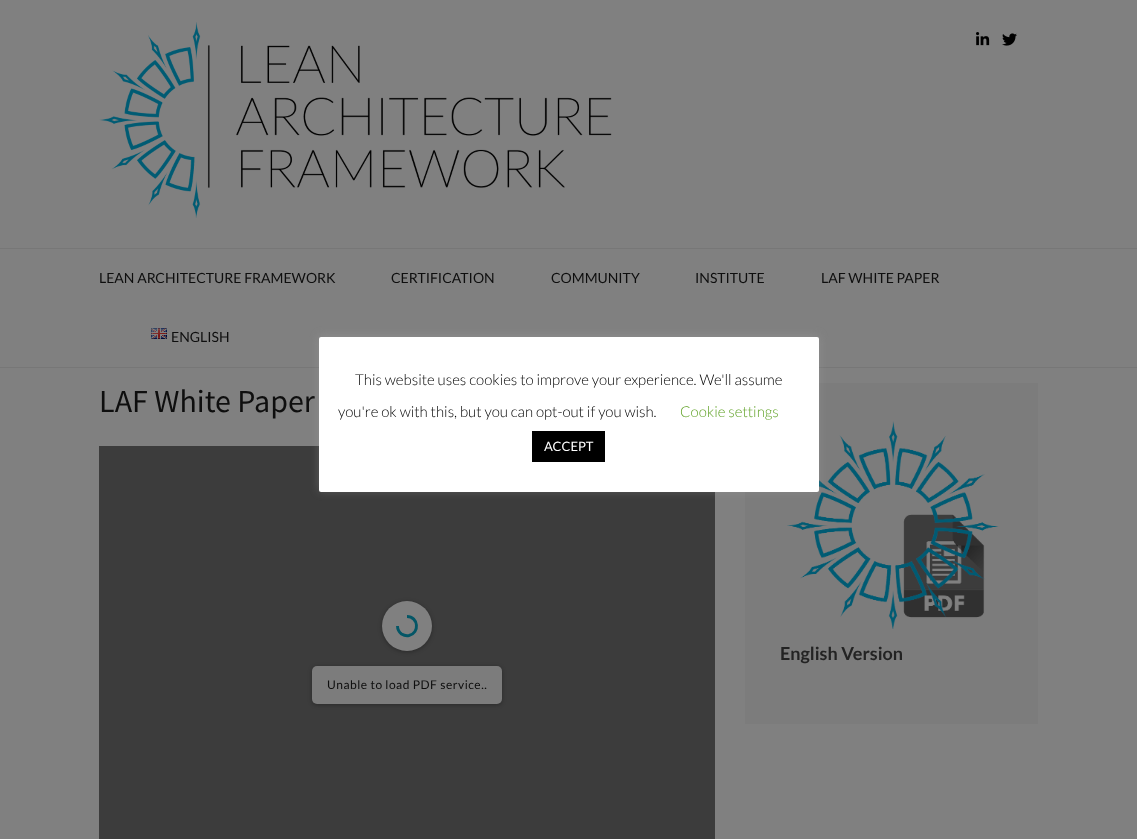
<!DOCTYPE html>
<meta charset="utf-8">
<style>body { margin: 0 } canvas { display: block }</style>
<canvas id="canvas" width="1137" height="839"></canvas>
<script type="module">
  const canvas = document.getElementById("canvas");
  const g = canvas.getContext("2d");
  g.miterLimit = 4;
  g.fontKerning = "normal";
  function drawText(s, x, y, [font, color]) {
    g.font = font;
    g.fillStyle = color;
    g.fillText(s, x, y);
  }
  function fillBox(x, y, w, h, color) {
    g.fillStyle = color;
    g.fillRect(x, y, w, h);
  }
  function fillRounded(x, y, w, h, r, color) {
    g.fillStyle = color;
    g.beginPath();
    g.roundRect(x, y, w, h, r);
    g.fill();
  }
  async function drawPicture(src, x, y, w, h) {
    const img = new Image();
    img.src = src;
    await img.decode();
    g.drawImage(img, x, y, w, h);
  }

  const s1 = ["14px Lato", "#0E0E0E"];
  const s2 = ["32px Source Sans Pro", "#0E0E0E"];
  const s3 = ["12px Lato", "#0E0E0E"];
  const s4 = ["bold 18px Lato", "#232323"];
  const s5 = ["300 15px Lato", "#000000"];
  const s6 = ["300 15px Lato", "#62A329"];
  const s7 = ["13px Lato", "#FFFFFF"];

  fillBox(0, 0, 1137, 839, "#808080");
  fillBox(0, 248, 1137, 1, "#777777");
  await drawPicture("pic1.png", 99, 22, 513, 196);
  await drawPicture("pic2.png", 976, 32, 14, 14);
  await drawPicture("pic3.png", 1002, 33, 15, 13);
  drawText("LEAN ARCHITECTURE FRAMEWORK", 99, 283, s1);
  drawText("CERTIFICATION", 391, 283, s1);
  drawText("COMMUNITY", 551, 283, s1);
  drawText("INSTITUTE", 695, 283, s1);
  drawText("LAF WHITE PAPER", 821, 283, s1);
  await drawPicture("pic4.png", 151, 328, 16, 11);
  drawText("ENGLISH", 171, 342, s1);
  fillBox(0, 367, 1137, 1, "#777777");
  drawText("LAF White Paper", 99, 412, s2);
  fillBox(99, 446, 616, 393, "#3C3C3C");
  g.fillStyle = "rgba(0, 0, 0, 0.3)";
  g.filter = "blur(2px)";
  g.beginPath();
  g.roundRect(382, 602, 50, 50, 25);
  g.fill();
  g.filter = "none";
  g.fillStyle = "#808080";
  g.beginPath();
  g.arc(407, 626, 25, 0, Math.PI * 2);
  g.fill();
  g.beginPath();
  g.moveTo(407, 616.5);
  g.bezierCurveTo(418.5, 616.5, 420, 633, 409, 635.5);
  g.bezierCurveTo(406.5, 636, 404, 635.5, 401.5, 634);
  g.bezierCurveTo(399, 632, 397.5, 629, 397.5, 626);
  g.strokeStyle = "#045666";
  g.lineWidth = 2.9;
  g.stroke();
  g.fillStyle = "rgba(0, 0, 0, 0.3)";
  g.filter = "blur(2px)";
  g.beginPath();
  g.roundRect(312, 667, 190, 38, 5);
  g.fill();
  g.filter = "none";
  fillRounded(312, 666, 190, 38, 5, "#7C7C7C");
  g.letterSpacing = "0.5px";
  drawText("Unable to load PDF service..", 327, 689, s3);
  fillBox(745, 383, 293, 341, "#7C7C7C");
  await drawPicture("pic5.png", 787, 421, 212, 208);
  g.letterSpacing = "0px";
  drawText("English Version", 780, 660, s4);
  g.fillStyle = "rgba(172, 171, 171, 0.3)";
  g.filter = "blur(5px)";
  g.beginPath();
  g.roundRect(319, 336, 500, 155, 2);
  g.fill();
  g.filter = "none";
  fillRounded(319, 337, 500, 155, 2, "#FFFFFF");
  drawText("This website uses cookies to improve your experience. We'll assume", 355, 385, s5);
  drawText("you're ok with this, but you can opt-out if you wish.", 338, 417, s5);
  drawText("Cookie settings", 680, 417, s6);
  fillBox(532, 431, 73, 31, "#000000");
  drawText("ACCEPT", 544, 451, s7);
</script>
